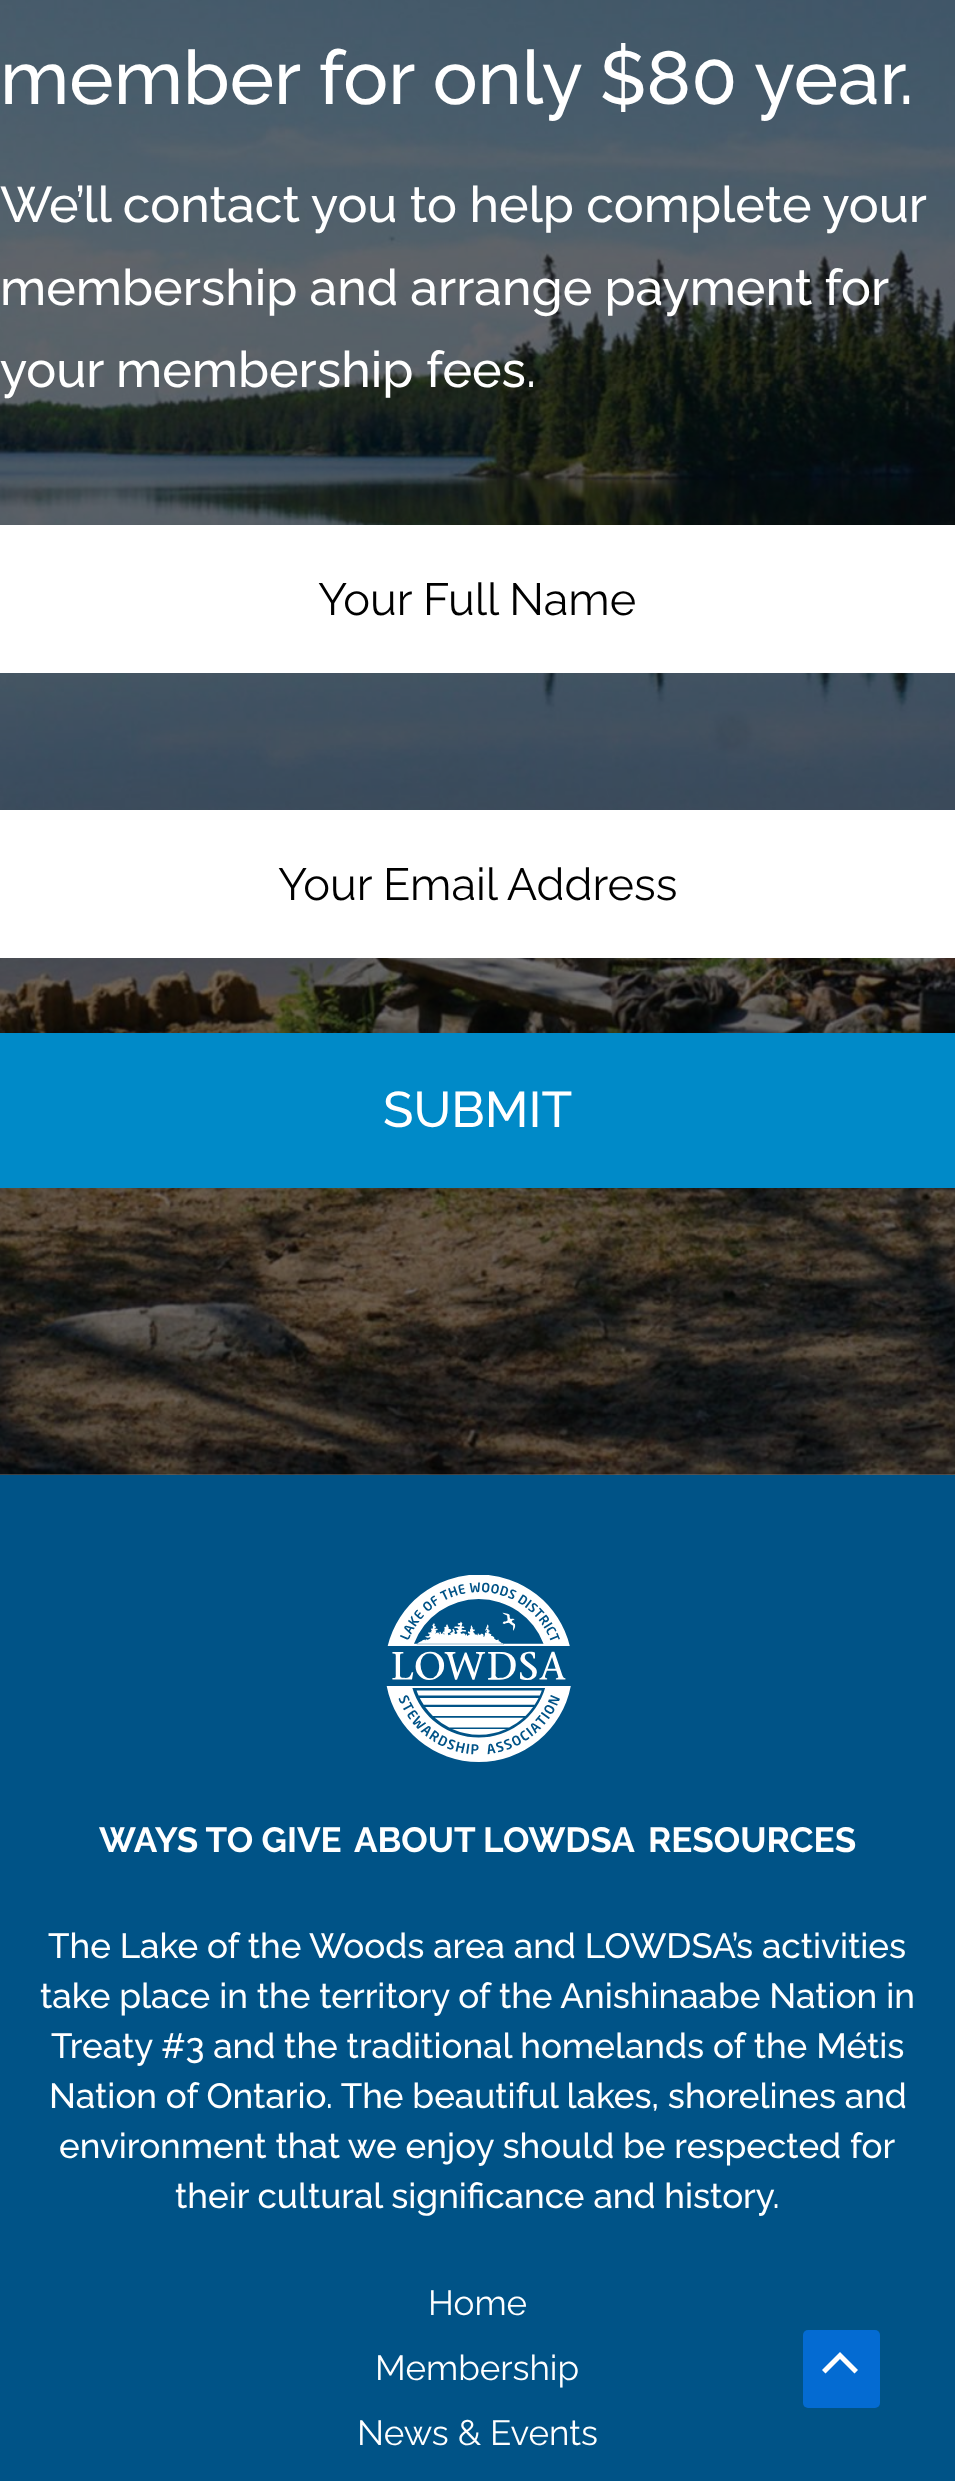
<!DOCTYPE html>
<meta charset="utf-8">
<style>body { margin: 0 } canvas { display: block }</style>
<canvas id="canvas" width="955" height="2481"></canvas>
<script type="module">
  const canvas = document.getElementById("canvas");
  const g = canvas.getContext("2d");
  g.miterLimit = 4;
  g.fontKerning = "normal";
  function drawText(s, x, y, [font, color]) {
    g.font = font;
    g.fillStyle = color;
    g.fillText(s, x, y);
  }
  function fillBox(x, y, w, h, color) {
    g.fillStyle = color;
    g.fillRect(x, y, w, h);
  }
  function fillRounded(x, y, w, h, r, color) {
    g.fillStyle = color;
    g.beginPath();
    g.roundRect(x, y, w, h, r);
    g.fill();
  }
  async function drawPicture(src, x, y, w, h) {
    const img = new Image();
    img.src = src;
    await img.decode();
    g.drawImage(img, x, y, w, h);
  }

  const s1 = ["500 75px Raleway", "#FFFFFF"];
  const s2 = ["500 50px Raleway", "#FFFFFF"];
  const s3 = ["45px Raleway", "#000000"];
  const s4 = ["bold 35px Raleway", "#FFFFFF"];
  const s5 = ["500 35px Raleway", "#FFFFFF"];
  const s6 = ["35px Raleway", "#FFFFFF"];

  fillBox(0, 0, 955, 2481, "#737373");
  await drawPicture("pic1.png", 0, 0, 955, 1475);
  drawText("member for only $80 year.", 0, 104, s1);
  g.wordSpacing = "-0.25px";
  drawText("We’ll contact you to help complete your", 0, 222, s2);
  g.wordSpacing = "-0.5px";
  drawText("membership and arrange payment for", 0, 305, s2);
  g.wordSpacing = "0px";
  drawText("your membership fees.", 0, 387, s2);
  fillBox(0, 525, 955, 148, "#FFFFFF");
  drawText("Your Full Name", 318, 615, s3);
  fillBox(0, 810, 955, 148, "#FFFFFF");
  drawText("Your Email Address", 278, 900, s3);
  fillBox(0, 1033, 955, 155, "#008AC8");
  drawText("SUBMIT", 383, 1127, s2);
  fillBox(0, 1475, 955, 1006, "#005387");
  await drawPicture("pic2.png", 386, 1575, 185, 187);
  drawText("WAYS TO GIVE", 99, 1852, s4);
  drawText("ABOUT LOWDSA", 354, 1852, s4);
  drawText("RESOURCES", 648, 1852, s4);
  drawText("The Lake of the Woods area and LOWDSA’s activities", 48, 1958, s5);
  drawText("take place in the territory of the Anishinaabe Nation in", 40, 2008, s5);
  drawText("Treaty #3 and the traditional homelands of the Métis", 51, 2058, s5);
  drawText("Nation of Ontario. The beautiful lakes, shorelines and", 49, 2108, s5);
  drawText("environment that we enjoy should be respected for", 59, 2158, s5);
  drawText("their cultural significance and history.", 175, 2208, s5);
  drawText("Home", 428, 2315, s6);
  drawText("Membership", 375, 2380, s6);
  drawText("News & Events", 357, 2445, s6);
  fillRounded(803, 2330, 77, 78, 5, "#046BD2");
  g.fillStyle = "#FFFFFF";
  g.beginPath();
  g.moveTo(858, 2370);
  g.lineTo(840, 2352);
  g.lineTo(822, 2370);
  g.lineTo(825.5, 2373.5);
  g.lineTo(840, 2359);
  g.lineTo(854.5, 2373.5);
  g.closePath();
  g.fill();
</script>
